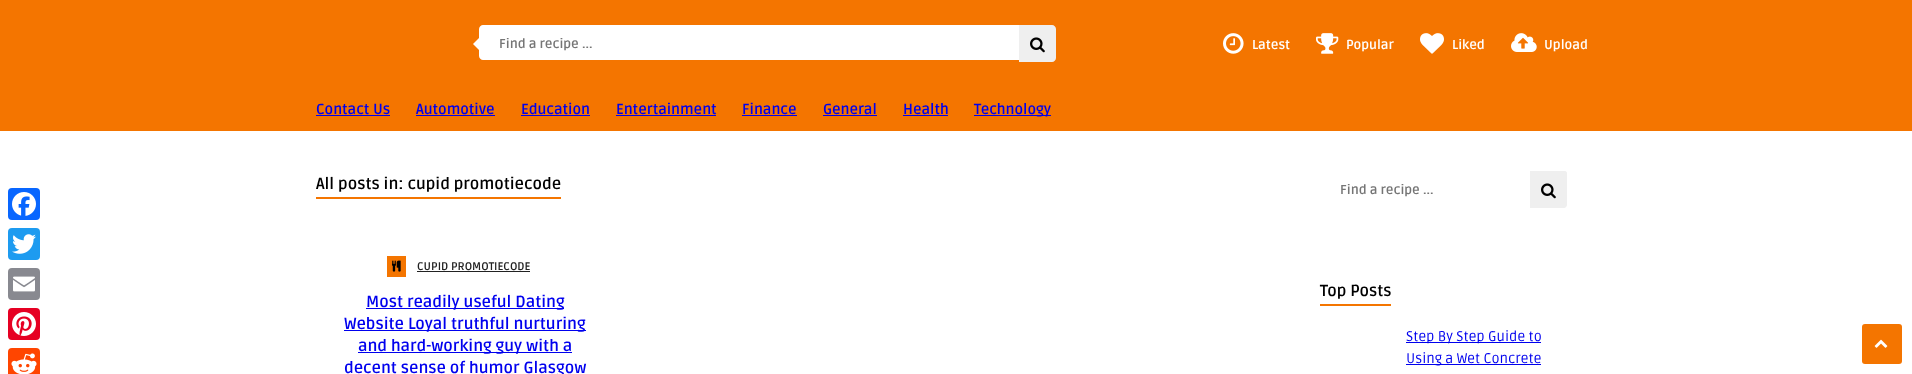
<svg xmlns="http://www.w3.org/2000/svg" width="1912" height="374">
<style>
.a{font:bold 13px Ruda;fill:#757575}
.b{font:bold 13px Ruda;fill:#fff}
.c{font:bold 14.5px Ruda;fill:#00e}
.d{font:bold 16px Ruda;fill:#000}
.e{font:bold 11px Ruda;fill:#222}
.f{font:bold 16px Ruda;fill:#00e}
.g{font:14px Ruda;fill:#00e}
</style>
<rect width="100%" height="100%" fill="#fff"/>
<path fill="#f47500" d="M0 0h1912v131H0z"/>
<path fill="#fff" d="M483 25h536v35h-536c-2 0-4-2-4-4v-27c0-2 2-4 4-4z"/>
<path fill="#fff" d="M483 34v20l-10-10z"/>
<path fill="#efefef" d="M1019 25h33c2 0 4 2 4 4v29c0 2-2 4-4 4h-33z"/>
<image href="1.png" x="1030" y="37" width="15" height="16"/>
<image href="2.png" x="1223" y="33" width="21" height="21"/>
<image href="3.png" x="1316" y="33" width="23" height="21"/>
<image href="4.png" x="1420" y="33" width="24" height="21"/>
<image href="5.png" x="1511" y="33" width="26" height="19"/>
<path fill="#00e" d="M316 115h74v1H316z"/>
<path fill="#00e" d="M416 115h79v1H416z"/>
<path fill="#00e" d="M521 115h69v1H521z"/>
<path fill="#00e" d="M616 115h100v1H616z"/>
<path fill="#00e" d="M742 115h55v1H742z"/>
<path fill="#00e" d="M823 115h54v1H823z"/>
<path fill="#00e" d="M903 115h45v1H903z"/>
<path fill="#00e" d="M974 115h77v1H974z"/>
<rect fill="#0866ff" x="8" y="188" width="32" height="32" rx="4"/>
<image href="6.png" x="12" y="192" width="24" height="24"/>
<rect fill="#1d9bf0" x="8" y="228" width="32" height="32" rx="4"/>
<image href="7.png" x="12" y="234" width="24" height="20"/>
<rect fill="#888990" x="8" y="268" width="32" height="32" rx="4"/>
<image href="8.png" x="13" y="276" width="22" height="16"/>
<rect fill="#e60023" x="8" y="308" width="32" height="32" rx="4"/>
<image href="9.png" x="12" y="312" width="24" height="24"/>
<rect fill="#ff4500" x="8" y="348" width="32" height="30" rx="4"/>
<image href="10.png" x="11" y="353" width="26" height="21"/>
<path fill="#f47500" d="M316 197h245v2H316z"/>
<path fill="#f47500" d="M387 256h19v21H387z"/>
<image href="11.png" x="392" y="260" width="9" height="12"/>
<path fill="#222" d="M417 271h113v1H417z"/>
<path fill="#00e" d="M366 308h198v1H366z"/>
<path fill="#00e" d="M344 330h242v1H344z"/>
<path fill="#00e" d="M358 352h214v1H358z"/>
<path fill="#efefef" d="M1530 171h35c1 0 2 1 2 2v32c0 1.5-1.5 3-3 3h-34z"/>
<image href="1.png" x="1541" y="183" width="15" height="16"/>
<path fill="#f47500" d="M1320 304h71v2H1320z"/>
<path fill="#00e" d="M1406 342h135v1H1406z"/>
<path fill="#00e" d="M1406 364h135v1H1406z"/>
<rect fill="#f47500" x="1862" y="324" width="40" height="40" rx="3"/>
<image href="12.png" x="1874" y="339" width="14" height="9"/>
<text class="a" x="499" y="48">Find a recipe ...</text>
<text class="b" x="1252" y="49">Latest</text>
<text class="b" x="1346" y="49">Popular</text>
<text class="b" x="1452" y="49">Liked</text>
<text class="b" x="1544" y="49">Upload</text>
<text class="c" x="316" y="114">Contact Us</text>
<text class="c" x="416" y="114">Automotive</text>
<text class="c" x="521" y="114">Education</text>
<text class="c" x="616" y="114">Entertainment</text>
<text class="c" x="742" y="114">Finance</text>
<text class="c" x="823" y="114">General</text>
<text class="c" x="903" y="114">Health</text>
<text class="c" x="974" y="114">Technology</text>
<text class="d" x="316" y="189">All posts in: cupid promotiecode</text>
<text class="e" x="417" y="270">CUPID PROMOTIECODE</text>
<text class="f" x="366" y="307">Most readily useful Dating</text>
<text class="f" x="344" y="329">Website Loyal truthful nurturing</text>
<text class="f" x="358" y="351">and hard-working guy with a</text>
<text class="f" x="344" y="373">decent sense of humor Glasgow</text>
<text class="a" x="1340" y="194">Find a recipe ...</text>
<text class="d" x="1320" y="296">Top Posts</text>
<text class="g" x="1406" y="341">Step By Step Guide to</text>
<text class="g" x="1406" y="363">Using a Wet Concrete</text>
</svg>
